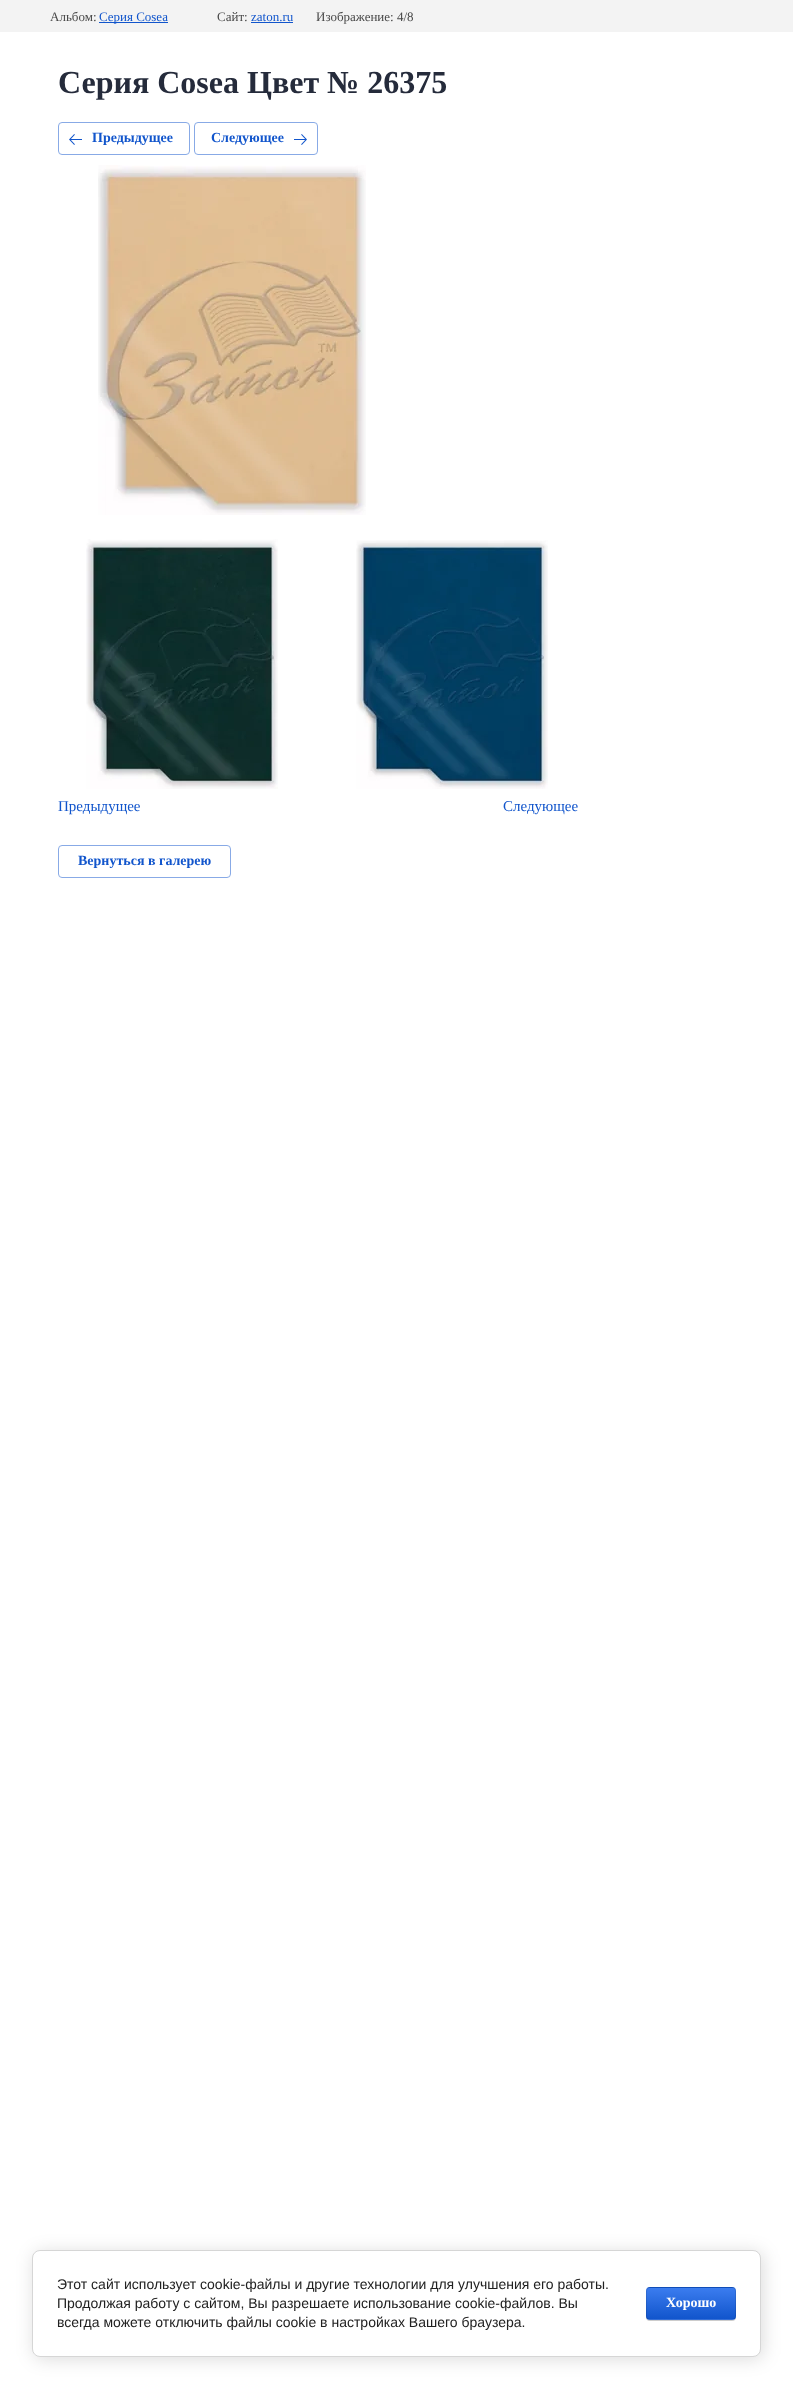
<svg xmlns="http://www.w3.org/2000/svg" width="793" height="2389">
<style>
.a{font:13px Liberation Serif;fill:#484848}
.b{font:13px Liberation Serif;fill:#15c}
.c{font:bold 32px Liberation Serif;fill:#252b3b}
.d{font:bold 14px Liberation Serif;fill:#15c}
.e{font:15px Liberation Serif;fill:#15c}
.f{font:14px Liberation Sans;fill:#212121}
.g{font:bold 14px Liberation Serif;fill:#fff}
</style>
<defs>
<clipPath id="clip1"><rect x="646" y="2287" width="90" height="33" rx="4"/></clipPath>
<linearGradient id="g1" gradientUnits="userSpaceOnUse" x1="691" y1="2257" x2="691" y2="2288"><stop offset="0" stop-color="#3b7cef"/><stop offset="1" stop-color="#15c"/></linearGradient>
<linearGradient id="g2" gradientUnits="userSpaceOnUse" x1="691" y1="2288" x2="691" y2="2319"><stop offset="0" stop-color="#3b7cef"/><stop offset="1" stop-color="#15c"/></linearGradient>
<linearGradient id="g3" gradientUnits="userSpaceOnUse" x1="691" y1="2319" x2="691" y2="2350"><stop offset="0" stop-color="#3b7cef"/><stop offset="1" stop-color="#15c"/></linearGradient>
</defs>
<rect width="100%" height="100%" fill="#fff"/>
<path fill="#f3f3f3" d="M0 0h793v32H0z"/>
<path fill="#15c" d="M99 22h69v1H99z"/>
<path fill="#15c" d="M251 22h42v1H251z"/>
<rect fill="none" stroke="#88aae6" x="58.5" y="122.5" width="131" height="32" rx="3.5"/>
<image href="1.png" x="69" y="134" width="13" height="11"/>
<rect fill="none" stroke="#88aae6" x="194.5" y="122.5" width="123" height="32" rx="3.5"/>
<image href="2.png" x="294" y="134" width="13" height="11"/>
<image href="3.png" x="98" y="165" width="268" height="350"/>
<image href="4.png" x="86" y="539" width="192" height="250"/>
<image href="5.png" x="356" y="540" width="192" height="249"/>
<rect fill="none" stroke="#88aae6" x="58.5" y="845.5" width="172" height="32" rx="3.5"/>
<rect fill="#00000024" filter="blur(9px)" x="34" y="2252" width="729" height="107" rx="8"/>
<rect fill="#fff" stroke="#d6d6d6" x="32.5" y="2250.5" width="728" height="106" rx="7.5"/>
<rect fill="#00000033" filter="blur(0.5px)" x="646" y="2288" width="90" height="33" rx="4"/>
<g clip-path="url(#clip1)">
<path fill="url(#g1)" d="M646 2287h90v1H646z"/>
<path fill="url(#g2)" d="M646 2288h90v31H646z"/>
<path fill="url(#g3)" d="M646 2319h90v1H646z"/>
</g>
<rect fill="none" stroke="#0000001a" x="646.5" y="2287.5" width="89" height="32" rx="3.5"/>
<text class="a" x="50" y="21">Альбом:</text>
<text class="b" x="99" y="21">Cерия Cosea</text>
<text class="a" x="217" y="21">Сайт:</text>
<text class="b" x="251" y="21">zaton.ru</text>
<text class="a" x="316" y="21">Изображение: 4/8</text>
<text class="c" x="58" y="93">Серия Cosea Цвет № 26375</text>
<text class="d" x="92" y="142">Предыдущее</text>
<text class="d" x="211" y="142">Следующее</text>
<text class="e" x="58" y="811">Предыдущее</text>
<text class="e" x="503" y="811">Следующее</text>
<text class="d" x="78" y="865">Вернуться в галерею</text>
<text class="f" x="57" y="2289">Этот сайт использует cookie-файлы и другие технологии для улучшения его работы.</text>
<text class="f" x="57" y="2308">Продолжая работу с сайтом, Вы разрешаете использование cookie-файлов. Вы</text>
<text class="f" x="57" y="2327">всегда можете отключить файлы cookie в настройках Вашего браузера.</text>
<text class="g" x="666" y="2307">Хорошо</text>
</svg>
